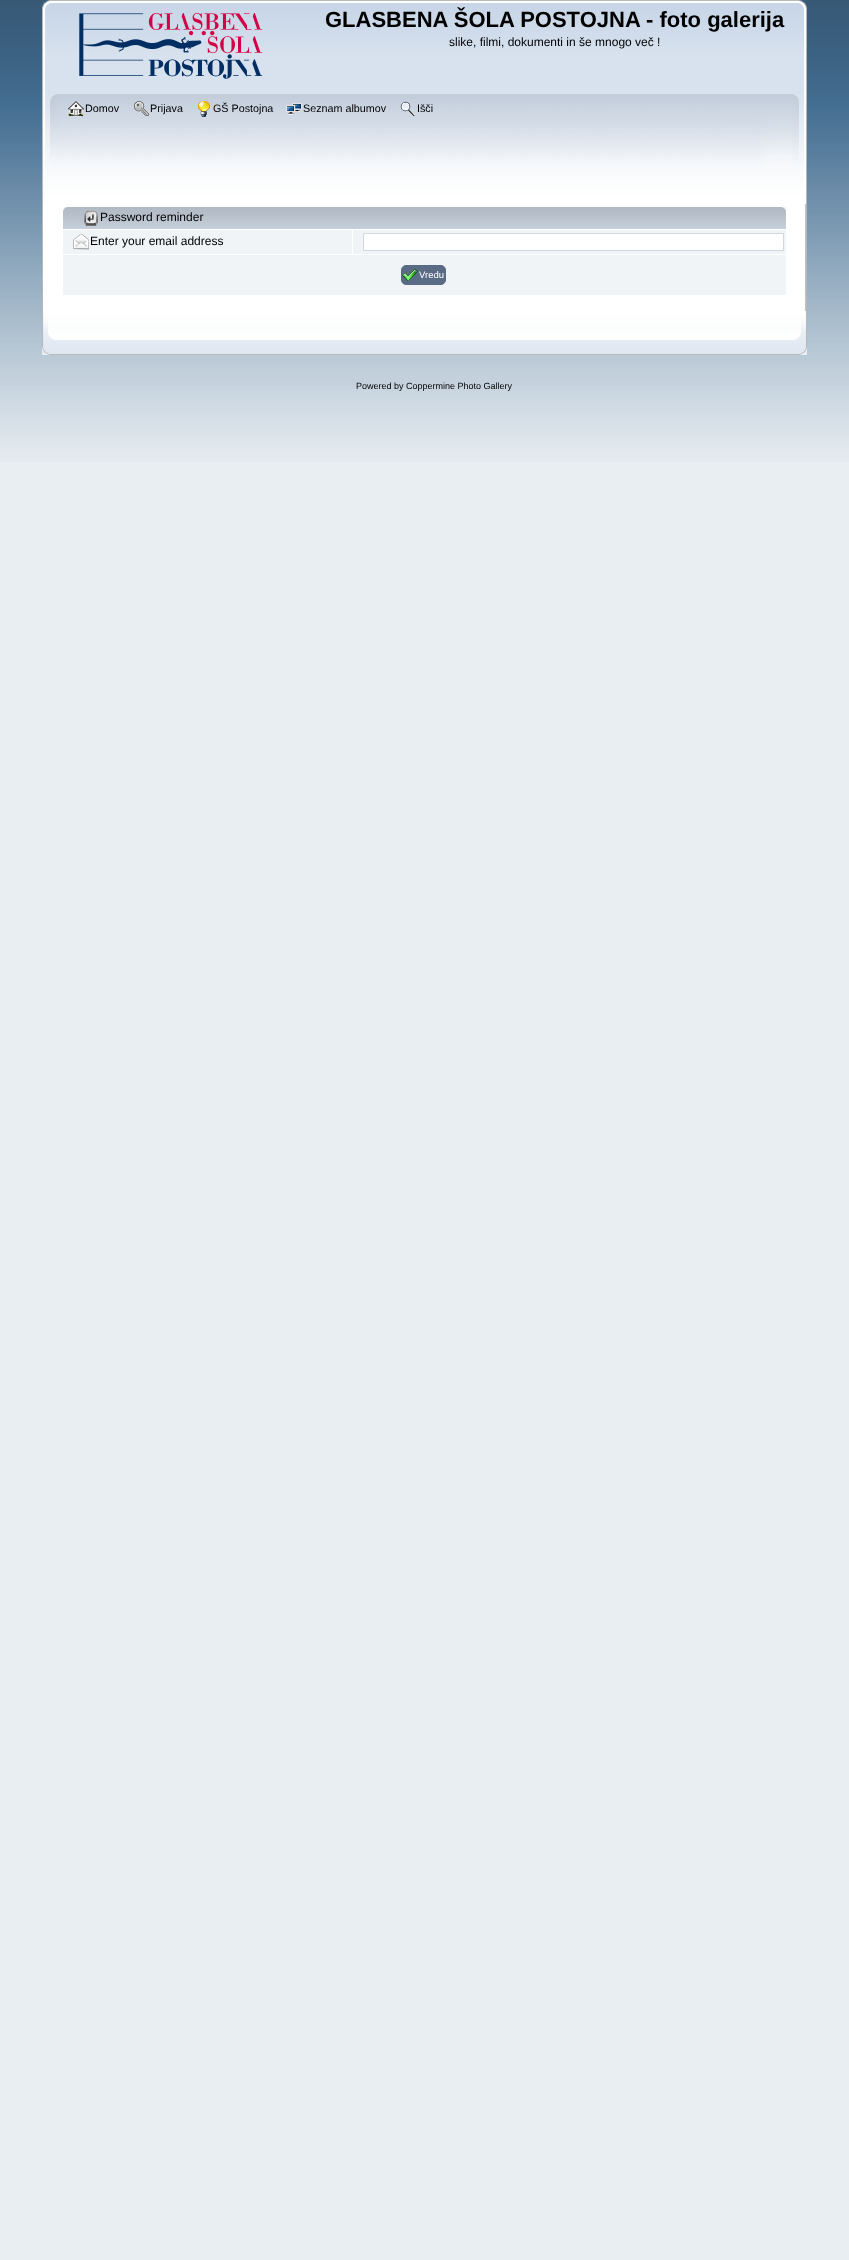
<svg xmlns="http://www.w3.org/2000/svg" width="849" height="2260">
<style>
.a{font:bold 22px Liberation Sans;fill:#000}
.b{font:12px Liberation Sans;fill:#000}
.c{font:10.75px Liberation Sans;fill:#000}
.d{font:9.5px Liberation Sans;fill:#fff}
.e{font:9px Liberation Sans;fill:#000}
</style>
<rect width="100%" height="100%" fill="#e9eef2"/>
<image href="1.png" x="0" y="0" width="849" height="462"/>
<image href="2.png" x="42" y="0" width="757" height="94"/>
<image href="3.png" x="799" y="0" width="8" height="94"/>
<image href="4.png" x="79" y="13" width="184" height="66"/>
<image href="5.png" x="42" y="94" width="750" height="110"/>
<image href="6.png" x="792" y="94" width="15" height="110"/>
<image href="7.png" x="68" y="101" width="16" height="16"/>
<image href="8.png" x="134" y="101" width="15" height="15"/>
<image href="9.png" x="198" y="101" width="12" height="16"/>
<image href="10.png" x="286" y="103" width="16" height="12"/>
<image href="11.png" x="400" y="101" width="16" height="15"/>
<path fill="#fff" d="M43 204h762v107H43z"/>
<path fill="#b7b7b7" d="M42 204h1v107H42z"/>
<image href="12.png" x="805" y="204" width="2" height="107"/>
<image href="13.png" x="63" y="207" width="723" height="22"/>
<image href="14.png" x="781" y="207" width="5" height="4"/>
<image href="15.png" x="84" y="210" width="14" height="16"/>
<path fill="#f0f4f7" d="M63 230h289v24H63z"/>
<image href="16.png" x="73" y="234" width="16" height="16"/>
<path fill="#f0f4f7" d="M353 230h433v24H353z"/>
<path fill="#fff" stroke="#d1d7dc" d="M363.5 233.5h420v17H363.5z"/>
<path fill="#f0f4f7" d="M63 255h723v40H63z"/>
<rect fill="#5a6c85" stroke="#5a6c85" x="401.5" y="265.5" width="44" height="19" rx="4.5"/>
<image href="17.png" x="402" y="269" width="16" height="12"/>
<image href="18.png" x="42" y="311" width="752" height="44"/>
<image href="19.png" x="794" y="311" width="13" height="44"/>
<text class="a" x="325" y="27">GLASBENA ŠOLA POSTOJNA - foto galerija</text>
<text class="b" x="449" y="46">slike, filmi, dokumenti in še mnogo več !</text>
<text class="c" x="85" y="112">Domov</text>
<text class="c" x="150" y="112">Prijava</text>
<text class="c" x="213" y="112">GŠ Postojna</text>
<text class="c" x="303" y="112">Seznam albumov</text>
<text class="c" x="417" y="112">Išči</text>
<text class="b" x="100" y="221">Password reminder</text>
<text class="b" x="90" y="245">Enter your email address</text>
<text class="d" x="419" y="278">Vredu</text>
<text class="e" x="356" y="389">Powered by Coppermine Photo Gallery</text>
</svg>
